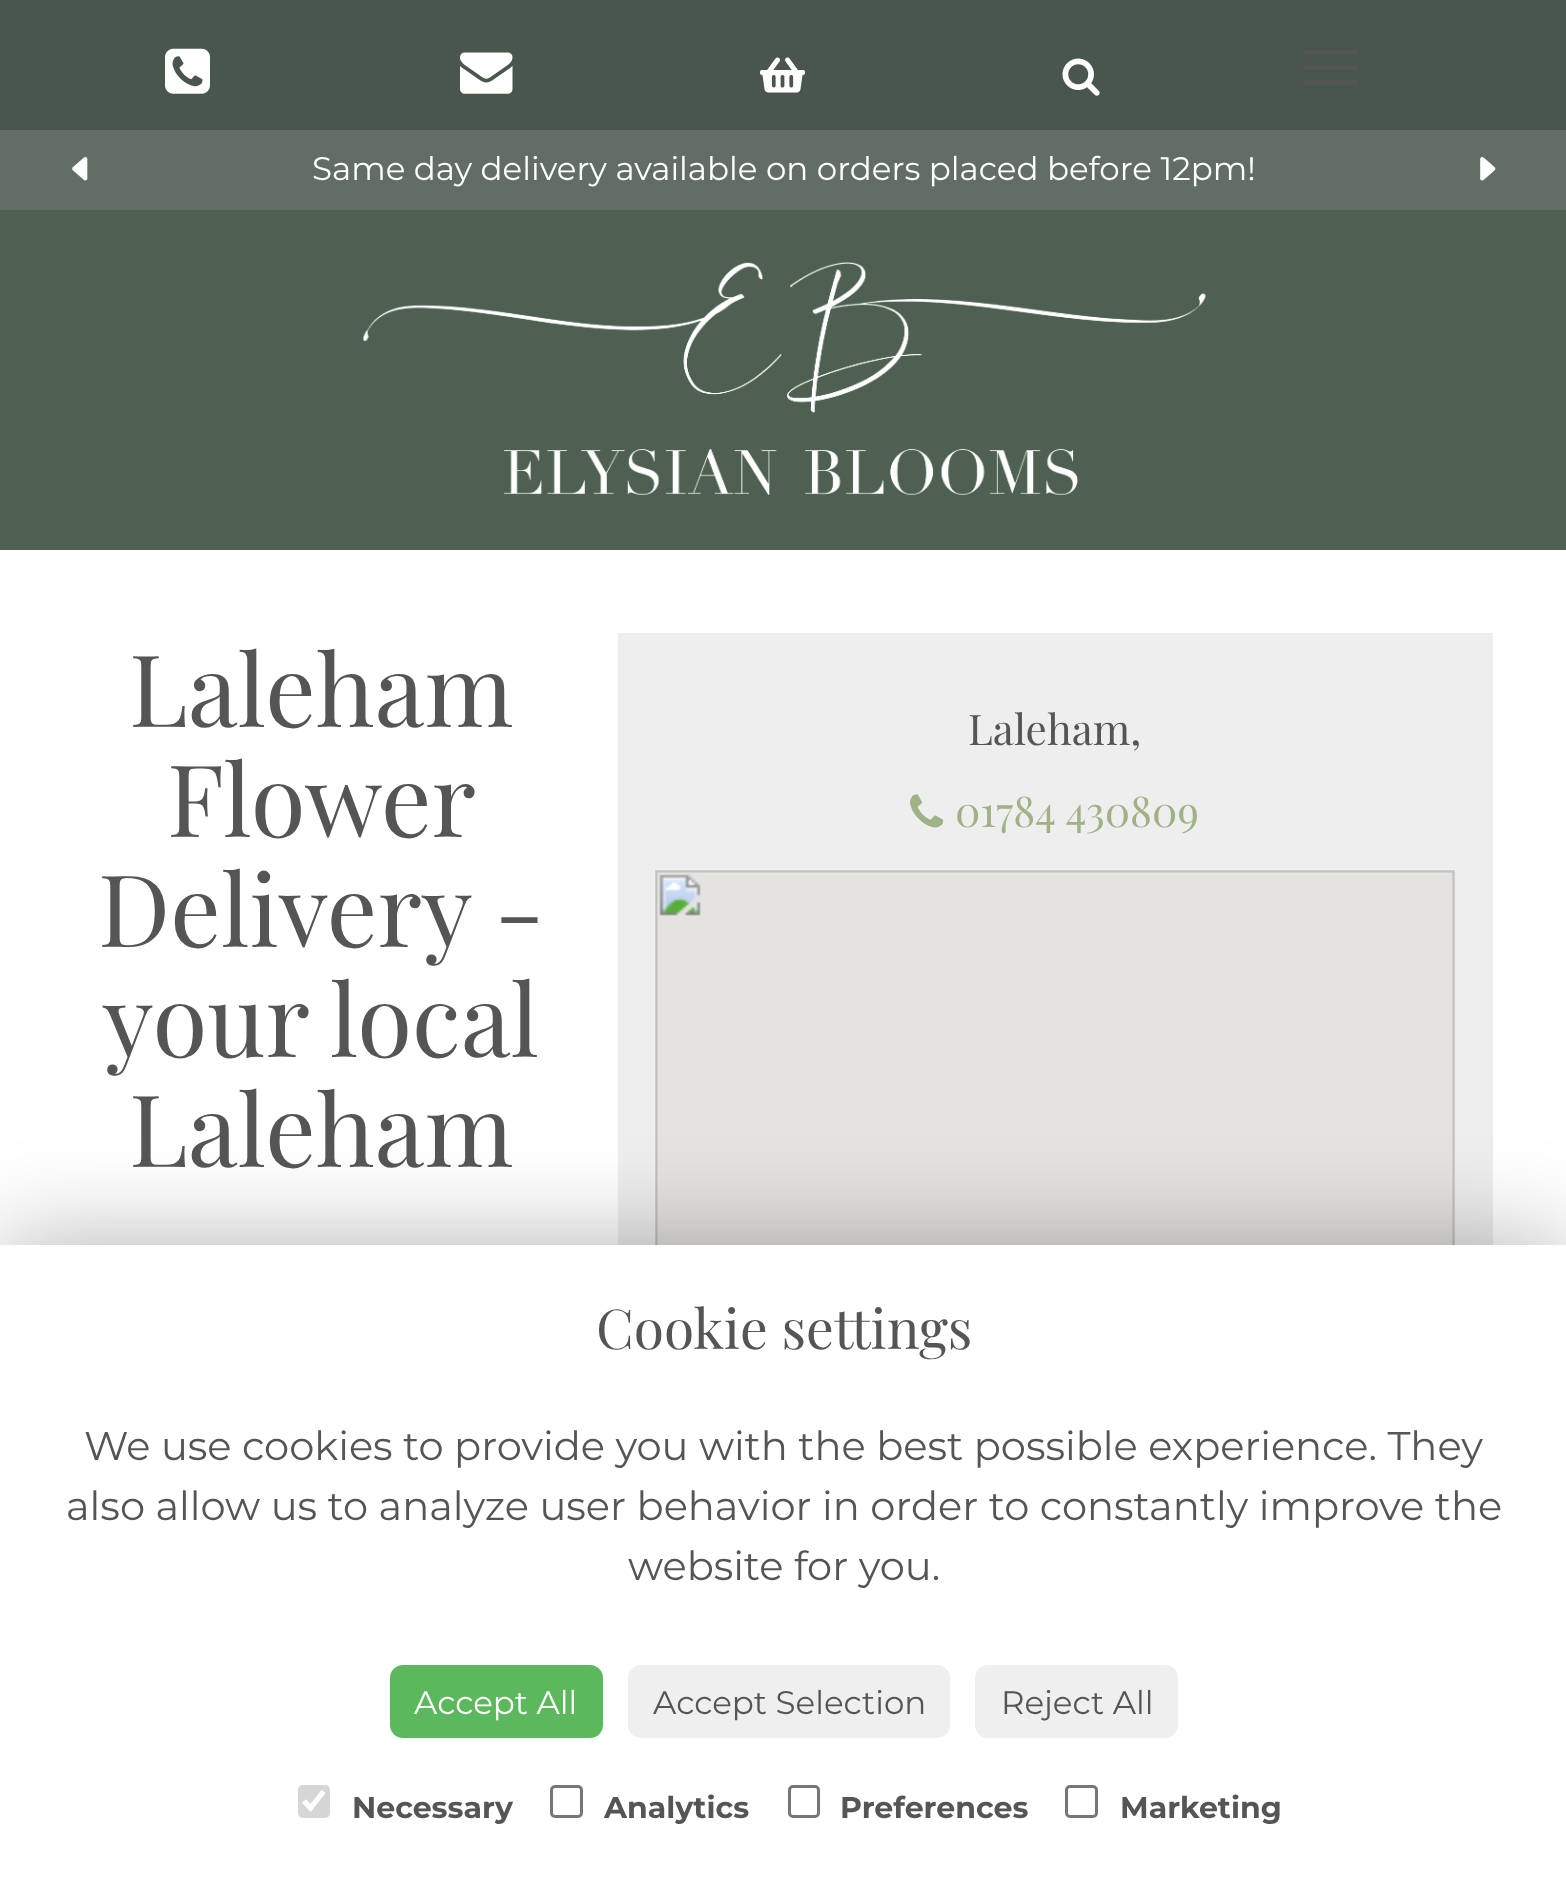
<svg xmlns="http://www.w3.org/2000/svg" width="1566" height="1892">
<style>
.a{font:32.5px Montserrat;fill:#fff}
.b{font:100px Playfair Display;fill:#555}
.c{font:42.25px Playfair Display;fill:#555}
.d{font:42.25px Playfair Display;fill:#9eb286}
.e{font:55px Playfair Display;fill:#555}
.f{font:40px Montserrat;fill:#555}
.g{font:32.5px Montserrat;fill:#555}
.h{font:bold 30px Montserrat;fill:#555}
</style>
<rect width="100%" height="100%" fill="#fff"/>
<path fill="#49564c" d="M0 0h1566v130H0z"/>
<image href="1.png" x="165" y="48" width="45" height="46"/>
<image href="2.png" x="460" y="52" width="53" height="42"/>
<image href="3.png" x="760" y="57" width="45" height="36"/>
<image href="4.png" x="1062" y="58" width="38" height="38"/>
<rect fill="#555" x="1303" y="50" width="55" height="5" rx="2.5"/>
<rect fill="#555" x="1303" y="65" width="55" height="5" rx="2.5"/>
<rect fill="#555" x="1303" y="80" width="55" height="5" rx="2.5"/>
<path fill="#4d6051" d="M0 210h1566v340H0z"/>
<path fill="#626e65" d="M0 130h1566v80H0z"/>
<image href="5.png" x="72" y="157" width="16" height="24"/>
<image href="6.png" x="1480" y="157" width="16" height="24"/>
<image href="7.png" x="362" y="261" width="844" height="234"/>
<path fill="#eee" d="M618 633h875v612H618z"/>
<image href="8.png" x="910" y="794" width="34" height="34"/>
<image href="9.png" x="655" y="870" width="800" height="375"/>
<path fill="#0000004f" filter="blur(50px)" d="M0 1245h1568v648H0z"/>
<path fill="#fff" d="M0 1245h1566v647H0z"/>
<rect fill="#5cb85c" x="390" y="1665" width="213" height="73" rx="13"/>
<rect fill="#efefef" x="628" y="1665" width="322" height="73" rx="13"/>
<rect fill="#efefef" x="975" y="1665" width="203" height="73" rx="13"/>
<rect fill="#d6d6d6" x="298" y="1785" width="32" height="33" rx="5"/>
<path fill="none" stroke="#fff" stroke-width="5.2" d="M304 1801l6.5 7l13-16.5"/>
<rect fill="none" stroke="#767676" stroke-width="3" x="551.5" y="1786.5" width="30" height="30" rx="3.5"/>
<rect fill="none" stroke="#767676" stroke-width="3" x="789.5" y="1786.5" width="29" height="30" rx="3.5"/>
<rect fill="none" stroke="#767676" stroke-width="3" x="1066.5" y="1786.5" width="30" height="30" rx="3.5"/>
<text class="a" x="312" y="180">Same day delivery available on orders placed before 12pm!</text>
<text class="b" x="129" y="727">Laleham</text>
<text class="b" x="167" y="837">Flower</text>
<text class="b" x="98" y="947">Delivery -</text>
<text class="b" x="103" y="1057">your local</text>
<text class="b" x="129" y="1167">Laleham</text>
<text class="c" x="968" y="745">Laleham,</text>
<text class="d" x="955" y="827">01784 430809</text>
<text class="e" x="596" y="1349">Cookie settings</text>
<text class="f" x="84" y="1460">We use cookies to provide you with the best possible experience. They</text>
<text class="f" x="66" y="1520">also allow us to analyze user behavior in order to constantly improve the</text>
<text class="f" x="628" y="1580">website for you.</text>
<text class="a" x="414" y="1714">Accept All</text>
<text class="g" x="653" y="1714">Accept Selection</text>
<text class="g" x="1001" y="1714">Reject All</text>
<text class="h" x="352" y="1818">Necessary</text>
<text class="h" x="604" y="1818">Analytics</text>
<text class="h" x="840" y="1818">Preferences</text>
<text class="h" x="1120" y="1818">Marketing</text>
</svg>
